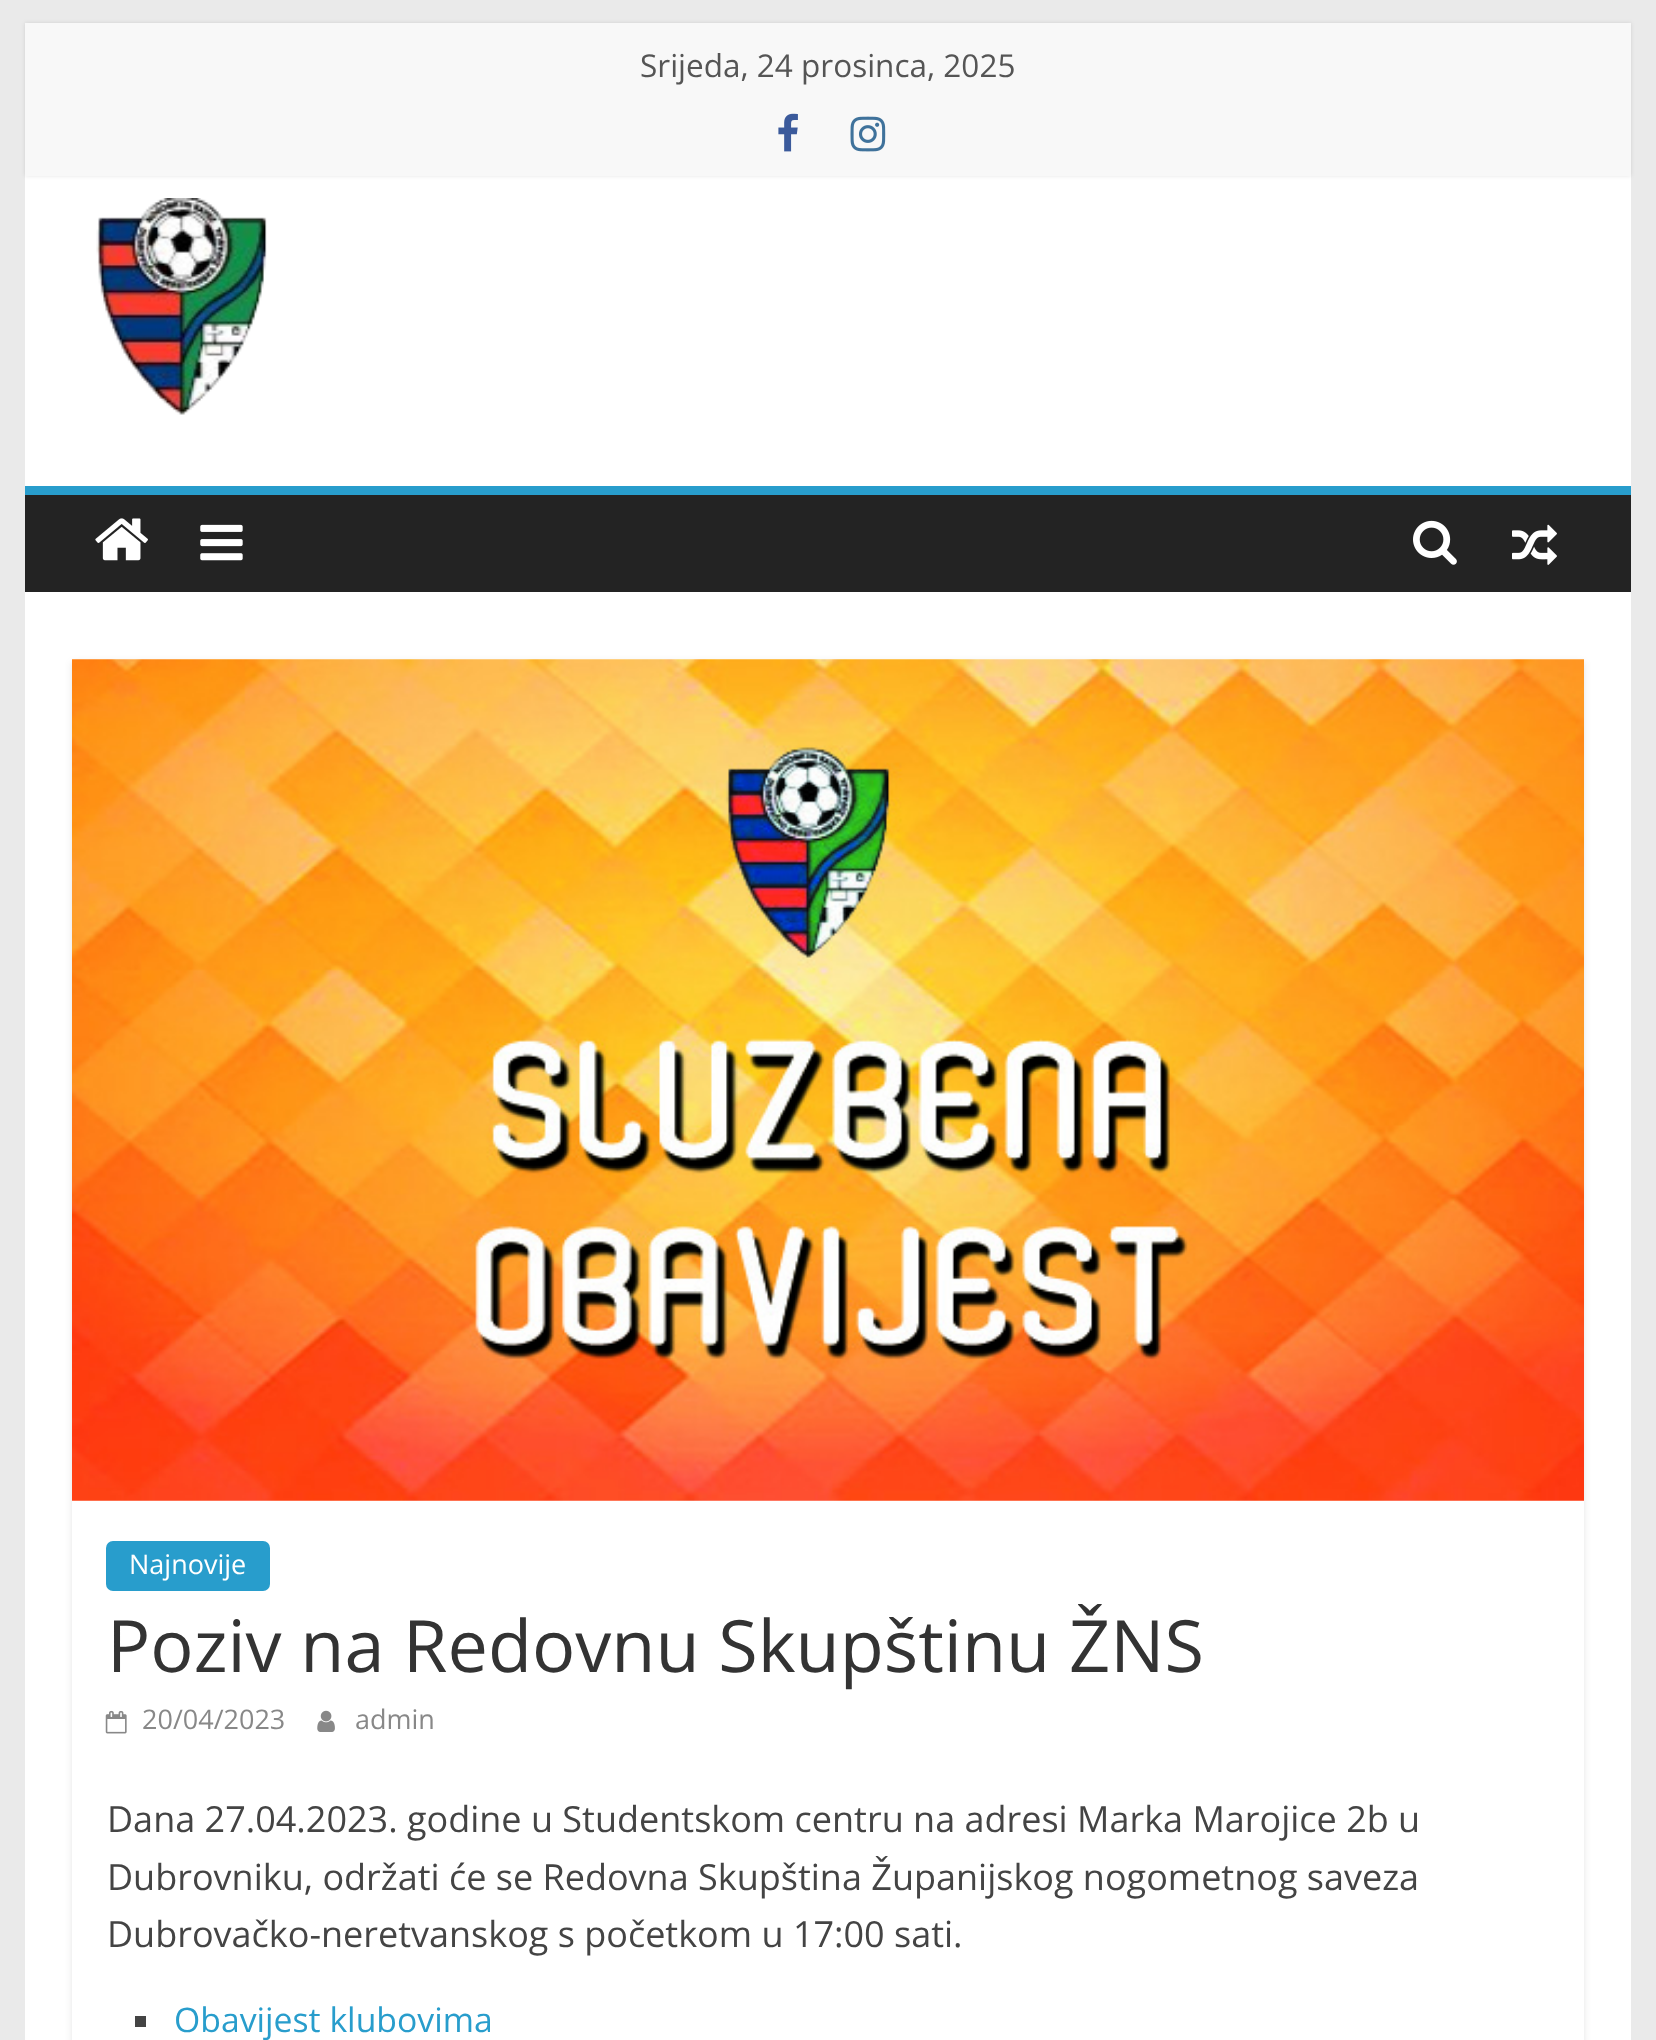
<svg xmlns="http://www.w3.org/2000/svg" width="1656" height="2040">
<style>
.a{font:31.5px Open Sans;fill:#555}
.b{font:27px Open Sans;fill:#fff}
.c{font:72px Open Sans;fill:#333}
.d{font:27px Open Sans;fill:#888}
.e{font:36px Open Sans;fill:#444}
.f{font:33.75px Open Sans;fill:#289dcc}
</style>
<defs>
<clipPath id="clip1"><path d="M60 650h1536v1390h-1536zm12 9h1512v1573h-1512z" clip-rule="evenodd"/></clipPath>
</defs>
<rect width="100%" height="100%" fill="#eaeaea"/>
<path fill="#fff" d="M25 176h1606v310H25z"/>
<path fill="#0000001a" filter="blur(2px)" d="M25 23h1606v153H25z"/>
<path fill="#f8f8f8" d="M25 23h1606v153H25z"/>
<image href="1.png" x="778" y="113" width="20" height="39"/>
<image href="2.png" x="850" y="116" width="36" height="36"/>
<image href="3.png" x="96" y="198" width="171" height="217"/>
<path fill="#232323" d="M25 495h1606v97H25z"/>
<path fill="#289dcc" d="M25 486h1606v9H25z"/>
<image href="4.png" x="95" y="518" width="53" height="43"/>
<image href="5.png" x="200" y="524" width="43" height="37"/>
<image href="6.png" x="1413" y="520" width="44" height="45"/>
<image href="7.png" x="1512" y="524" width="45" height="41"/>
<path fill="#fff" d="M25 592h1606v1448H25z"/>
<g clip-path="url(#clip1)">
<path fill="#0000001a" filter="blur(3.5px)" d="M72 662h1512v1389H72z"/>
</g>
<image href="8.png" x="72" y="659" width="1512" height="842"/>
<rect fill="#289dcc" x="106" y="1541" width="164" height="50" rx="7"/>
<image href="9.png" x="105" y="1710" width="22" height="24"/>
<image href="10.png" x="317" y="1710" width="18" height="22"/>
<path fill="#444" d="M135 2016h11v11H135z"/>
<text class="a" x="640" y="77">Srijeda, 24 prosinca, 2025</text>
<text class="b" x="129" y="1574">Najnovije</text>
<text class="c" x="107" y="1672">Poziv na Redovnu Skupštinu ŽNS</text>
<text class="d" x="142" y="1729">20/04/2023</text>
<text class="d" x="355" y="1729">admin</text>
<text class="e" x="107" y="1832">Dana 27.04.2023. godine u Studentskom centru na adresi Marka Marojice 2b u</text>
<text class="e" x="107" y="1890">Dubrovniku, održati će se Redovna Skupština Županijskog nogometnog saveza</text>
<text class="e" x="107" y="1947">Dubrovačko-neretvanskog s početkom u 17:00 sati.</text>
<text class="f" x="174" y="2032">Obavijest klubovima</text>
</svg>
